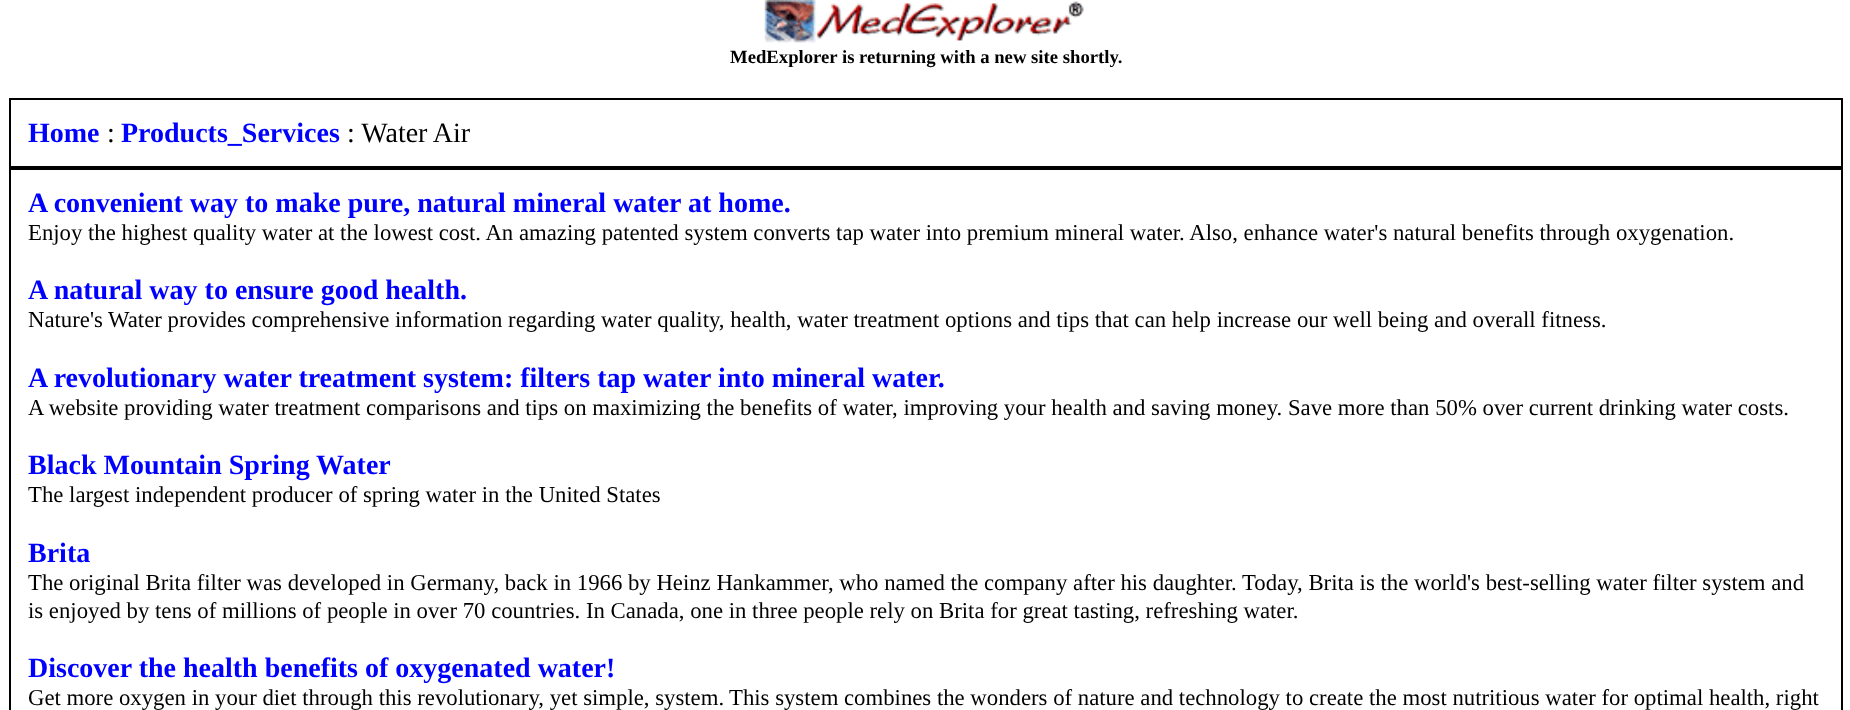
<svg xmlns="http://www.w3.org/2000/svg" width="1850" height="710">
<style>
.a{font:bold 18.7px Liberation Serif;fill:#000}
.b{font:bold 28px Liberation Serif;fill:#00f}
.c{font:28px Liberation Serif;fill:#000}
.d{font:22.75px Liberation Serif;fill:#000}
</style>
<rect width="100%" height="100%" fill="#fff"/>
<image href="1.png" x="764" y="0" width="321" height="44"/>
<path fill="none" stroke="#000" stroke-width="2" d="M10 99h1832v68H10z"/>
<path fill="none" stroke="#000" stroke-width="2" d="M10 169h1832v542H10z"/>
<text class="a" x="730" y="63">MedExplorer is returning with a new site shortly.</text>
<text class="b" x="28" y="142">Home</text>
<text class="c" x="107" y="142">:</text>
<text class="b" x="121" y="142">Products_Services</text>
<text class="c" x="347" y="142">: Water Air</text>
<text class="b" x="28" y="212">A convenient way to make pure, natural mineral water at home.</text>
<text class="d" x="28" y="240">Enjoy the highest quality water at the lowest cost. An amazing patented system converts tap water into premium mineral water. Also, enhance water's natural benefits through oxygenation.</text>
<text class="b" x="28" y="299">A natural way to ensure good health.</text>
<text class="d" x="28" y="327">Nature's Water provides comprehensive information regarding water quality, health, water treatment options and tips that can help increase our well being and overall fitness.</text>
<text class="b" x="28" y="387">A revolutionary water treatment system: filters tap water into mineral water.</text>
<text class="d" x="28" y="415">A website providing water treatment comparisons and tips on maximizing the benefits of water, improving your health and saving money. Save more than 50% over current drinking water costs.</text>
<text class="b" x="28" y="474">Black Mountain Spring Water</text>
<text class="d" x="28" y="502">The largest independent producer of spring water in the United States</text>
<text class="b" x="28" y="562">Brita</text>
<text class="d" x="28" y="590">The original Brita filter was developed in Germany, back in 1966 by Heinz Hankammer, who named the company after his daughter.</text>
<text class="d" x="1242" y="590">Today, Brita is the world's best-selling water filter system and</text>
<text class="d" x="28" y="618">is enjoyed by tens of millions of people in over 70 countries. In Canada, one in three people rely on Brita for great tasting, refreshing water.</text>
<text class="b" x="28" y="677">Discover the health benefits of oxygenated water!</text>
<text class="d" x="28" y="705">Get more oxygen in your diet through this revolutionary, yet simple, system.</text>
<text class="d" x="729" y="705">This system combines the wonders of nature and technology to create the most nutritious water for optimal health, right</text>
</svg>
